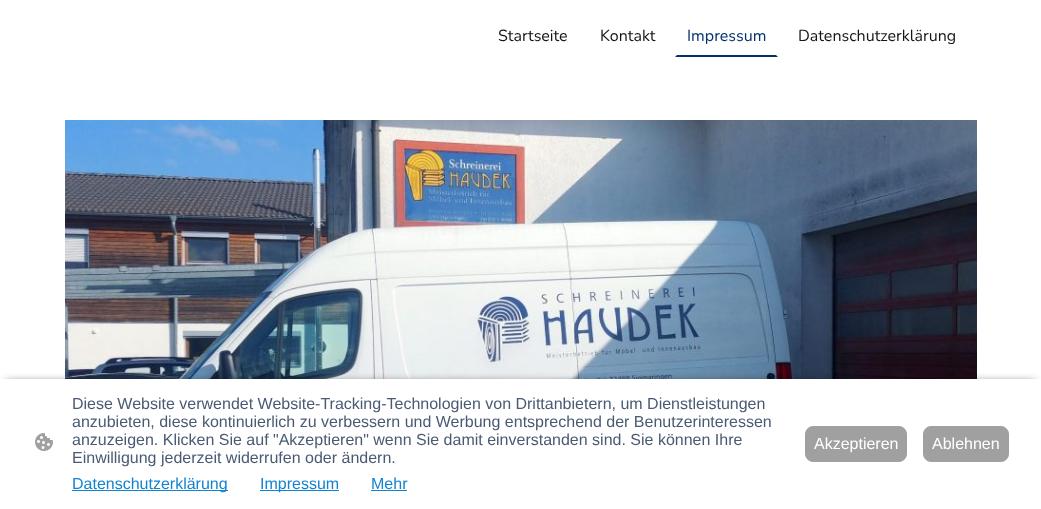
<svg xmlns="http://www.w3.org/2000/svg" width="1041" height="509">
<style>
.a{font:16px Nunito;fill:#151515}
.b{font:16px Nunito;fill:#03326d}
.c{font:16px Liberation Sans;fill:#4a5a73}
.d{font:16px Liberation Sans;fill:#1183d1}
.e{font:16px Liberation Sans;fill:#fff}
</style>
<rect width="100%" height="100%" fill="#fff"/>
<path fill="#03326d" d="M778 57h-103l2-2h99z"/>
<image href="1.png" x="65" y="120" width="912" height="259"/>
<path fill="#000000a1" filter="blur(4px)" d="M6 382h1029v118H6z"/>
<path fill="#fff" d="M0 379h1041v130H0z"/>
<image href="2.png" x="35" y="433" width="18" height="18"/>
<path fill="#1183d1" d="M72 490h156v1H72z"/>
<path fill="#1183d1" d="M260 490h79v1H260z"/>
<path fill="#1183d1" d="M371 490h36v1H371z"/>
<rect fill="#a0a0a0" stroke="#a0a0a0" x="805.5" y="426.5" width="101" height="35" rx="7.5"/>
<rect fill="#a0a0a0" stroke="#a0a0a0" x="923.5" y="426.5" width="85" height="35" rx="7.5"/>
<text class="a" x="498" y="41">Startseite</text>
<text class="a" x="600" y="41">Kontakt</text>
<text class="b" x="687" y="41">Impressum</text>
<text class="a" x="798" y="41">Datenschutzerklärung</text>
<text class="c" x="72" y="409">Diese Website verwendet Website-Tracking-Technologien von Drittanbietern, um Dienstleistungen</text>
<text class="c" x="72" y="427">anzubieten, diese kontinuierlich zu verbessern und Werbung entsprechend der Benutzerinteressen</text>
<text class="c" x="72" y="445">anzuzeigen. Klicken Sie auf "Akzeptieren" wenn Sie damit einverstanden sind. Sie können Ihre</text>
<text class="c" x="72" y="463">Einwilligung jederzeit widerrufen oder ändern.</text>
<text class="d" x="72" y="489">Datenschutzerklärung</text>
<text class="d" x="260" y="489">Impressum</text>
<text class="d" x="371" y="489">Mehr</text>
<text class="e" x="814" y="449">Akzeptieren</text>
<text class="e" x="932" y="449">Ablehnen</text>
</svg>
